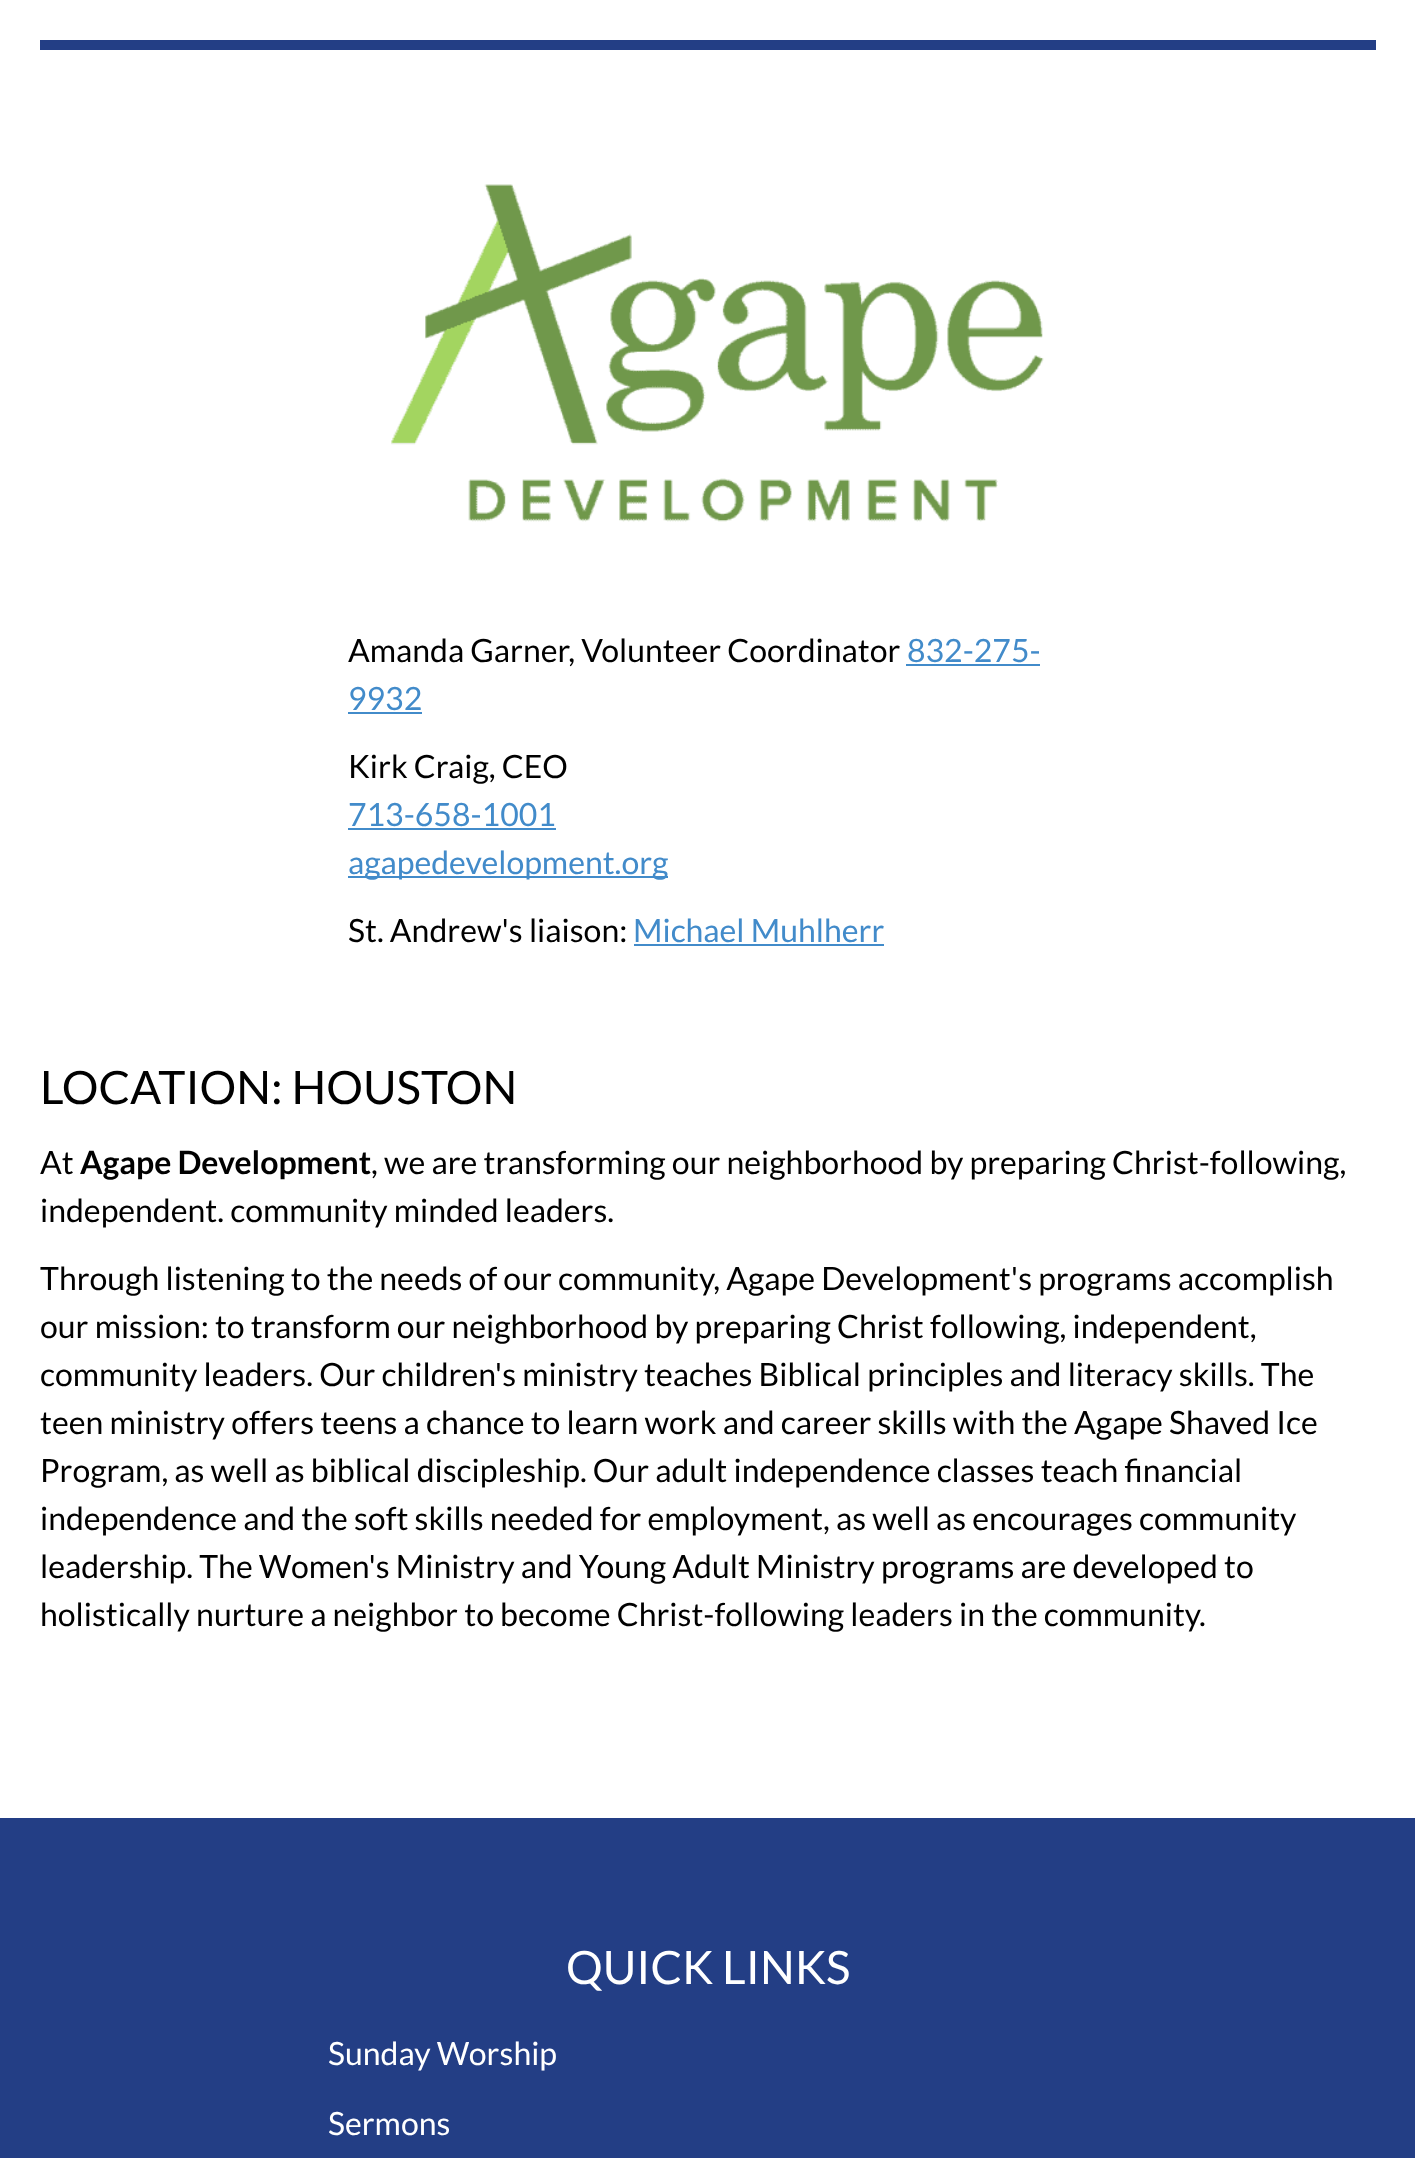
<svg xmlns="http://www.w3.org/2000/svg" width="1415" height="2158">
<style>
.a{font:32px Lato;fill:#000}
.b{font:32px Lato;fill:#428bca}
.c{font:46px Lato;fill:#000}
.d{font:bold 32px Lato;fill:#000}
.e{font:46px Lato;fill:#fff}
.f{font:32px Lato;fill:#fff}
</style>
<rect width="100%" height="100%" fill="#fff"/>
<path fill="#233e85" d="M40 40h1336v10H40z"/>
<image href="1.png" x="391" y="184" width="653" height="338"/>
<path fill="#428bca" d="M906 664h134v2H906z"/>
<path fill="#428bca" d="M348 712h74v2H348z"/>
<path fill="#428bca" d="M348 828h208v2H348z"/>
<path fill="#428bca" d="M348 876h320v2H348z"/>
<path fill="#428bca" d="M634 944h250v2H634z"/>
<path fill="#233e85" d="M0 1818h1415v340H0z"/>
<text class="a" x="348" y="662">Amanda Garner, Volunteer Coordinator</text>
<text class="b" x="907" y="662">832-275-</text>
<text class="b" x="348" y="710">9932</text>
<text class="a" x="348" y="778">Kirk Craig, CEO</text>
<text class="b" x="348" y="826">713-658-1001</text>
<text class="b" x="348" y="874">agapedevelopment.org</text>
<text class="a" x="348" y="942">St. Andrew's liaison:</text>
<text class="b" x="633" y="942">Michael Muhlherr</text>
<text class="c" x="40" y="1104">LOCATION: HOUSTON</text>
<text class="a" x="40" y="1174">At</text>
<text class="d" x="80" y="1174">Agape Development</text>
<text class="a" x="371" y="1174">, we are transforming our neighborhood by preparing Christ-following,</text>
<text class="a" x="40" y="1222">independent. community minded leaders.</text>
<text class="a" x="40" y="1290">Through listening to the needs of our community, Agape Development's programs accomplish</text>
<text class="a" x="40" y="1338">our mission: to transform our neighborhood by preparing Christ following, independent,</text>
<text class="a" x="40" y="1386">community leaders. Our children's ministry teaches Biblical principles and literacy skills. The</text>
<text class="a" x="40" y="1434">teen ministry offers teens a chance to learn work and career skills with the Agape Shaved Ice</text>
<text class="a" x="40" y="1482">Program, as well as biblical discipleship. Our adult independence classes teach financial</text>
<text class="a" x="40" y="1530">independence and the soft skills needed for employment, as well as encourages community</text>
<text class="a" x="40" y="1578">leadership. The Women's Ministry and Young Adult Ministry programs are developed to</text>
<text class="a" x="40" y="1626">holistically nurture a neighbor to become Christ-following leaders in the community.</text>
<text class="e" x="566" y="1984">QUICK LINKS</text>
<text class="f" x="328" y="2065">Sunday Worship</text>
<text class="f" x="328" y="2135">Sermons</text>
</svg>
